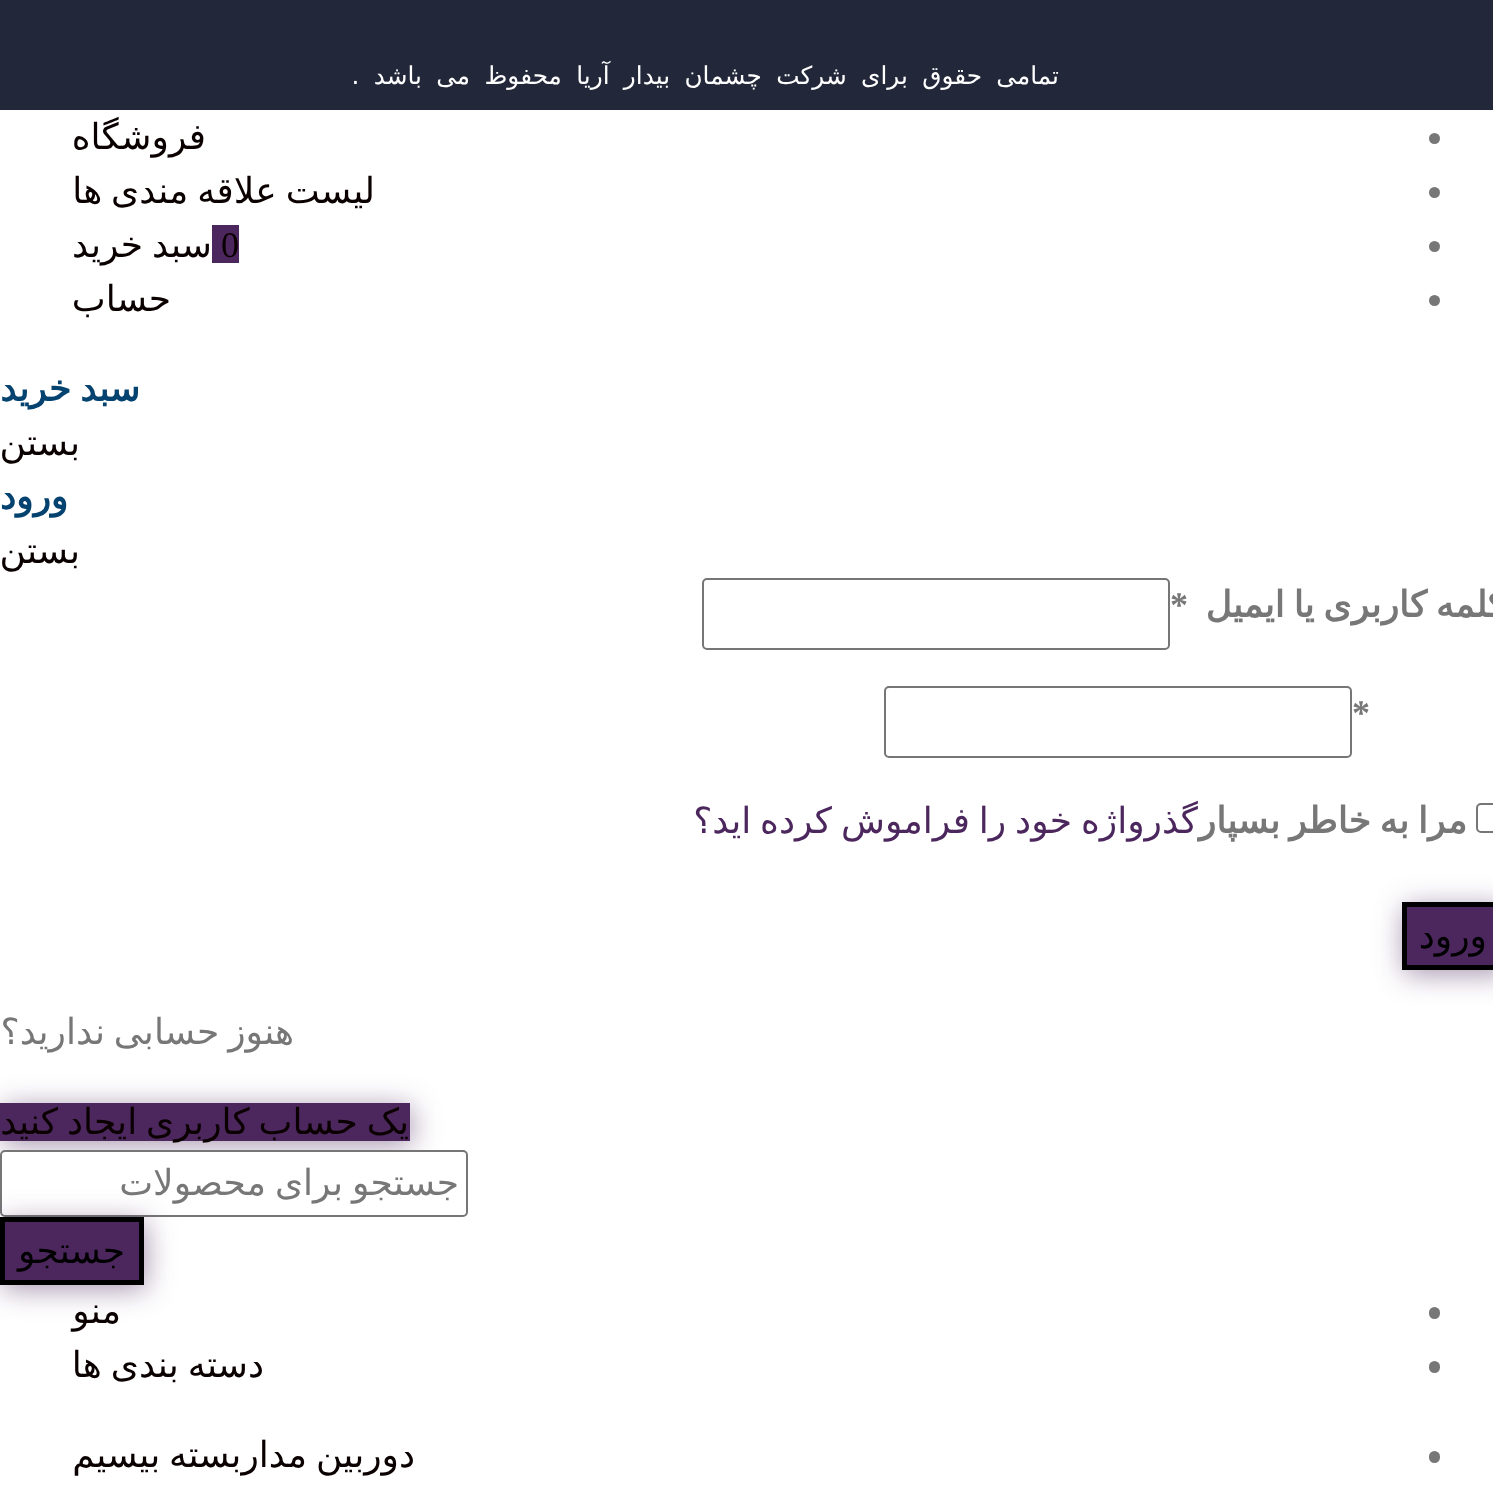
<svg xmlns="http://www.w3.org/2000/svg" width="1493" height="1487">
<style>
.a{font:24.75px DejaVu Sans;letter-spacing:-1.57px;direction:rtl;fill:#fff}
.b{font:36px DejaVu Sans;direction:rtl;fill:#0a0000}
.c{font:36px Liberation Serif;fill:#0a0000}
.d{font:bold 36px DejaVu Sans;direction:rtl;fill:#04426f}
.e{font:bold 36px DejaVu Sans;direction:rtl;fill:#777}
.f{font:bold 36px Liberation Serif;fill:#777}
.g{font:36px DejaVu Sans;direction:rtl;fill:#4c275e}
.h{font:36px DejaVu Sans;direction:rtl;fill:#000}
.i{font:36px DejaVu Sans;direction:rtl;fill:#777}
</style>
<defs>
<clipPath id="clip1"><path d="M9 1161h450v43H9z"/></clipPath>
</defs>
<rect width="100%" height="100%" fill="#fff"/>
<path fill="#22273a" d="M0 0h1493v110H0z"/>
<circle fill="#777" cx="1434.5" cy="138.5" r="5.5"/>
<circle fill="#777" cx="1434.5" cy="192.5" r="5.5"/>
<circle fill="#777" cx="1434.5" cy="246.5" r="5.5"/>
<path fill="#4c275e" d="M212 225h27v38H212z"/>
<circle fill="#777" cx="1434.5" cy="300.5" r="5.5"/>
<rect fill="none" stroke="#767676" stroke-width="2" x="703" y="579" width="466" height="70" rx="4"/>
<rect fill="none" stroke="#767676" stroke-width="2" x="885" y="687" width="466" height="70" rx="4"/>
<rect fill="none" stroke="#767676" stroke-width="2" x="1477" y="804" width="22" height="28" rx="4"/>
<path fill="#4c275e80" filter="blur(14.5px)" d="M1404 907h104v67H1404z"/>
<path fill="#4c275e" stroke="#000" stroke-width="5" d="M1404.5 904.5h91v63H1404.5z"/>
<path fill="#4c275e80" filter="blur(14.5px)" d="M2 1107h410v38H2z"/>
<path fill="#4c275e" d="M0 1103h410v38H0z"/>
<rect fill="#fff" stroke="#767676" stroke-width="2" x="1" y="1151" width="466" height="65" rx="4"/>
<path fill="#4c275e80" filter="blur(14.5px)" d="M2 1222h144v67H2z"/>
<path fill="#4c275e" stroke="#000" stroke-width="5" d="M2.5 1219.5h139v63H2.5z"/>
<rect fill="#777" x="1429" y="1307" width="11" height="12" rx="5.5"/>
<rect fill="#777" x="1429" y="1361" width="11" height="12" rx="5.5"/>
<rect fill="#777" x="1429" y="1451" width="11" height="12" rx="5.5"/>
<text class="a" x="1059" y="84" word-spacing="6.5">تمامی حقوق برای شرکت چشمان بیدار آریا محفوظ می باشد .</text>
<text class="b" x="206" y="149">فروشگاه</text>
<text class="b" x="375" y="203" word-spacing="-2.5">لیست علاقه مندی ها</text>
<text class="c" x="221" y="257">0</text>
<text class="b" x="212" y="257" word-spacing="-2.5">سبد خرید</text>
<text class="b" x="171" y="311">حساب</text>
<text class="d" x="140" y="401" word-spacing="-2.5">سبد خرید</text>
<text class="b" x="80" y="455">بستن</text>
<text class="d" x="68" y="509">ورود</text>
<text class="b" x="80" y="563">بستن</text>
<text class="e" x="1505" y="617" word-spacing="-2.5">کلمه کاربری یا ایمیل</text>
<text class="f" x="1170" y="617">*</text>
<text class="f" x="1352" y="725">*</text>
<text class="e" x="1467" y="833" word-spacing="-2.5">مرا به خاطر بسپار</text>
<text class="g" x="1198" y="833" word-spacing="-2.5">گذرواژه خود را فراموش کرده اید؟</text>
<text class="h" x="1487" y="948">ورود</text>
<text class="i" x="294" y="1044" word-spacing="-2.5">هنوز حسابی ندارید؟</text>
<text class="b" x="409" y="1134" word-spacing="-2.5">یک حساب کاربری ایجاد کنید</text>
<g clip-path="url(#clip1)">
<text class="i" x="459" y="1195" word-spacing="-2.5">جستجو برای محصولات</text>
</g>
<text class="h" x="125" y="1263">جستجو</text>
<text class="b" x="121" y="1323">منو</text>
<text class="b" x="264" y="1377" word-spacing="-2.5">دسته بندی ها</text>
<text class="b" x="415" y="1467" word-spacing="-2.5">دوربین مداربسته بیسیم</text>
</svg>
